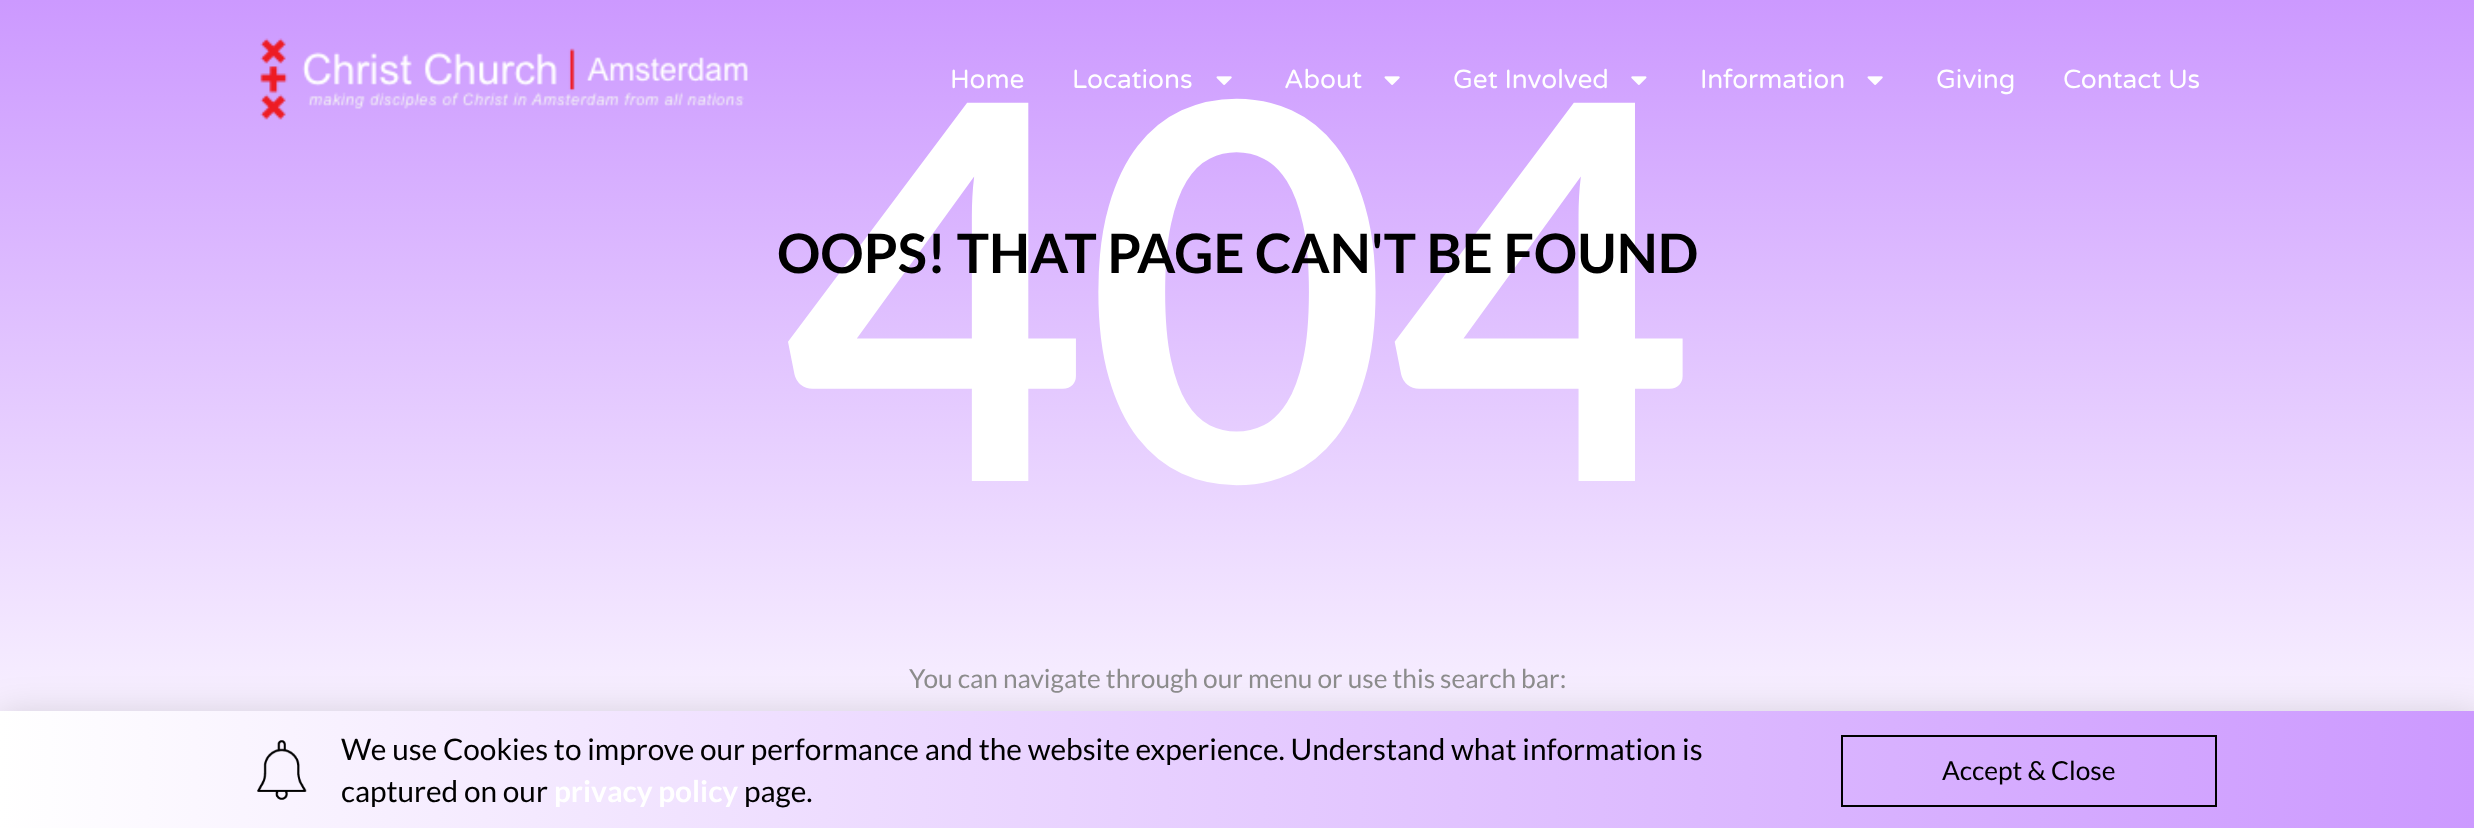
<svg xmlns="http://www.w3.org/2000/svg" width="2474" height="828">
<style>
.a{font:26.25px Varela Round;fill:#fff}
.b{font:bold 523px Lato;fill:#fff}
.c{font:bold 54.25px Lato;fill:#000}
.d{font:26.25px Lato;fill:#8c8c8c}
.e{font:29.75px Lato;fill:#000}
.f{font:bold 29.75px Lato;fill:#fff}
.g{font:26.25px Lato;fill:#000}
</style>
<defs>
<linearGradient id="g1" gradientUnits="userSpaceOnUse" x1="1237" y1="0" x2="1237" y2="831"><stop offset="0" stop-color="#c9f"/><stop offset="1" stop-color="#fff"/></linearGradient>
<linearGradient id="g2" gradientUnits="userSpaceOnUse" x1="0" y1="770" x2="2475" y2="770"><stop offset="0" stop-color="#fff"/><stop offset="1" stop-color="#c9f"/></linearGradient>
</defs>
<rect width="100%" height="100%" fill="#fff"/>
<path fill="url(#g1)" d="M0 0h2474v711H0z"/>
<image href="1.png" x="260" y="38" width="488" height="82"/>
<image href="2.png" x="1216" y="76" width="16" height="9"/>
<image href="2.png" x="1384" y="76" width="16" height="9"/>
<image href="3.png" x="1631" y="76" width="16" height="9"/>
<image href="2.png" x="1867" y="76" width="16" height="9"/>
<path fill="#00000033" filter="blur(20px)" d="M-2 719h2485v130H-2z"/>
<path fill="url(#g2)" d="M0 711h2474v117H0z"/>
<image href="4.png" x="257" y="740" width="50" height="60"/>
<path fill="none" stroke="#000" stroke-width="2" d="M1842 736h374v70H1842z"/>
<text class="a" x="950" y="88">Home</text>
<text class="a" x="1072" y="88">Locations</text>
<text class="a" x="1284" y="88">About</text>
<text class="a" x="1453" y="88">Get Involved</text>
<text class="a" x="1700" y="88">Information</text>
<text class="a" x="1936" y="88">Giving</text>
<text class="a" x="2063" y="88">Contact Us</text>
<text class="b" x="782" y="481">404</text>
<text class="c" x="777" y="273">OOPS! THAT PAGE CAN'T BE FOUND</text>
<text class="d" x="909" y="688">You can navigate through our menu or use this search bar:</text>
<text class="e" x="341" y="760">We use Cookies to improve our performance and the website experience. Understand what information is</text>
<text class="e" x="341" y="802">captured on our</text>
<text class="f" x="554" y="802">privacy policy</text>
<text class="e" x="744" y="802">page.</text>
<text class="g" x="1942" y="780">Accept &amp; Close</text>
</svg>
